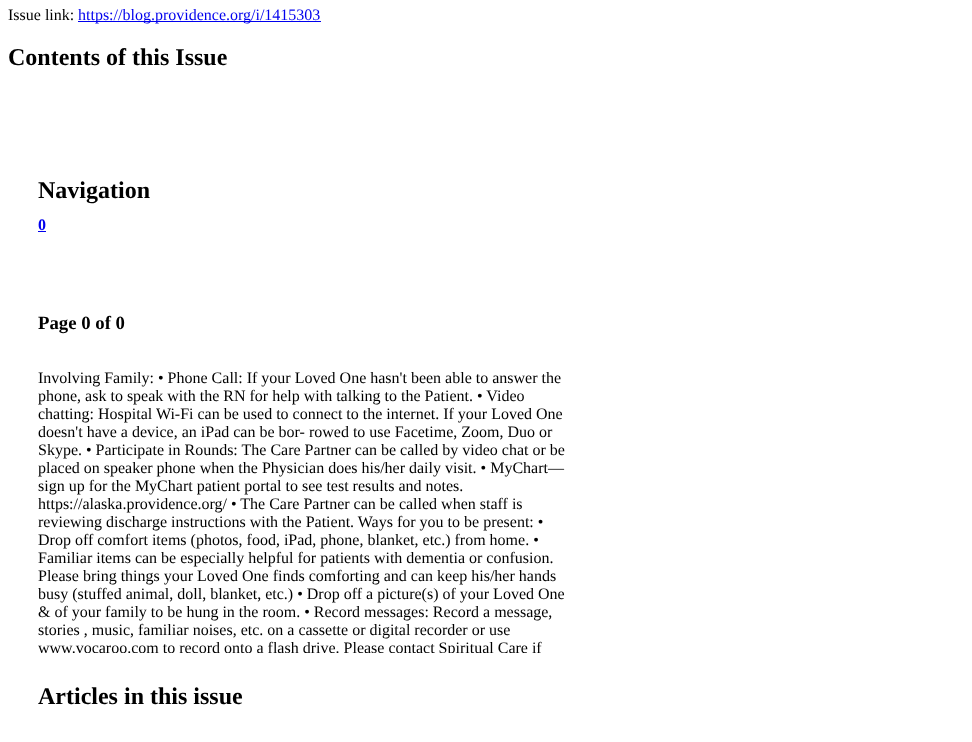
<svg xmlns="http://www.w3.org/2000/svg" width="972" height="742">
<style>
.a{font:16px Liberation Serif;fill:#000}
.b{font:16px Liberation Serif;fill:#00e}
.c{font:bold 24px Liberation Serif;fill:#000}
.d{font:bold 16px Liberation Serif;fill:#00e}
.e{font:bold 18.75px Liberation Serif;fill:#000}
</style>
<defs>
<clipPath id="clip1"><path d="M38 353h550v300H38z"/></clipPath>
</defs>
<rect width="100%" height="100%" fill="#fff"/>
<path fill="#00e" d="M78 21h243v1H78z"/>
<path fill="#00e" d="M38 231h8v1H38z"/>
<text class="a" x="8" y="20">Issue link:</text>
<text class="b" x="78" y="20">https://blog.providence.org/i/1415303</text>
<text class="c" x="8" y="65">Contents of this Issue</text>
<text class="c" x="38" y="198">Navigation</text>
<text class="d" x="38" y="230">0</text>
<text class="e" x="38" y="329">Page 0 of 0</text>
<text class="a" x="38" y="383">Involving Family: • Phone Call: If your Loved One hasn't been able to answer the</text>
<text class="a" x="38" y="401">phone, ask to speak with the RN for help with talking to the Patient. • Video</text>
<text class="a" x="38" y="419">chatting: Hospital Wi-Fi can be used to connect to the internet. If your Loved One</text>
<text class="a" x="38" y="437">doesn't have a device, an iPad can be bor- rowed to use Facetime, Zoom, Duo or</text>
<text class="a" x="38" y="455">Skype. • Participate in Rounds: The Care Partner can be called by video chat or be</text>
<text class="a" x="38" y="473">placed on speaker phone when the Physician does his/her daily visit. • MyChart—</text>
<text class="a" x="38" y="491">sign up for the MyChart patient portal to see test results and notes.</text>
<text class="a" x="38" y="509">https://alaska.providence.org/ • The Care Partner can be called when staff is</text>
<text class="a" x="38" y="527">reviewing discharge instructions with the Patient. Ways for you to be present: •</text>
<text class="a" x="38" y="545">Drop off comfort items (photos, food, iPad, phone, blanket, etc.) from home. •</text>
<text class="a" x="38" y="563">Familiar items can be especially helpful for patients with dementia or confusion.</text>
<text class="a" x="38" y="581">Please bring things your Loved One finds comforting and can keep his/her hands</text>
<text class="a" x="38" y="599">busy (stuffed animal, doll, blanket, etc.) • Drop off a picture(s) of your Loved One</text>
<text class="a" x="38" y="617">&amp; of your family to be hung in the room. • Record messages: Record a message,</text>
<text class="a" x="38" y="635">stories , music, familiar noises, etc. on a cassette or digital recorder or use</text>
<g clip-path="url(#clip1)">
<text class="a" x="38" y="653">www.vocaroo.com to record onto a flash drive. Please contact Spiritual Care if</text>
</g>
<text class="c" x="38" y="704">Articles in this issue</text>
</svg>
